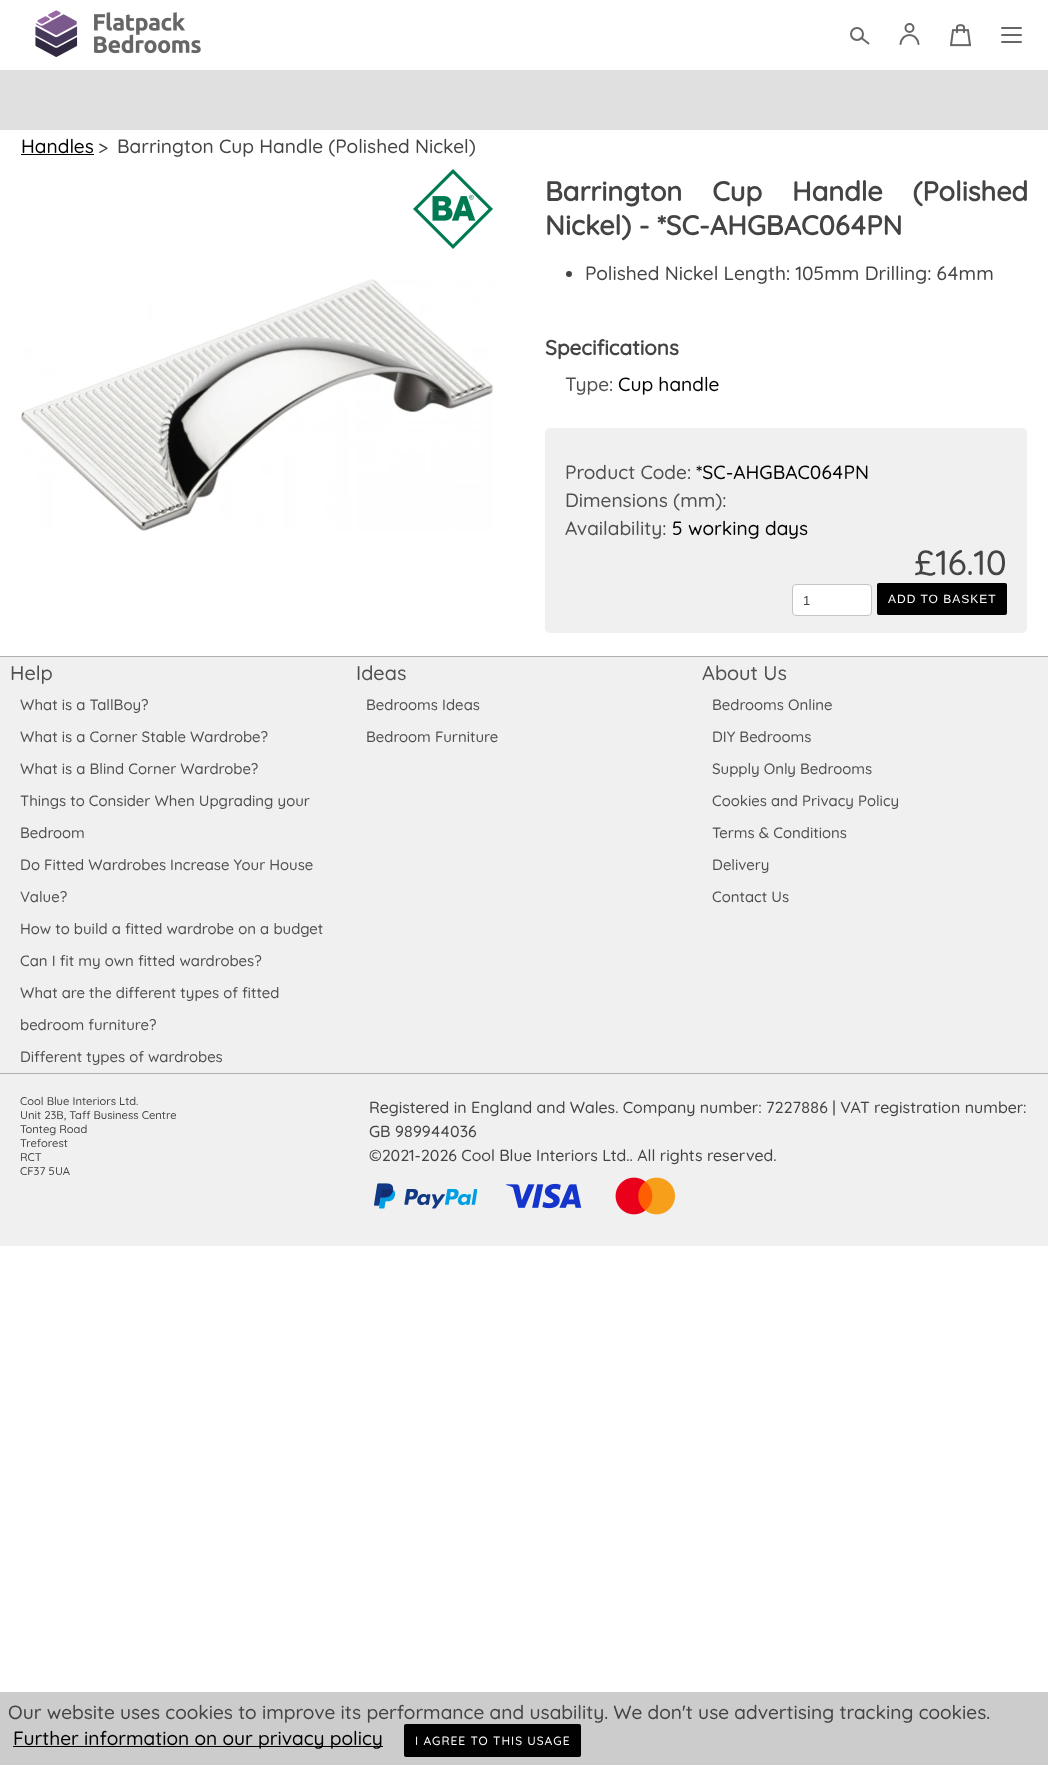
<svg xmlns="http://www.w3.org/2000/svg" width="1048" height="1765">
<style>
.a{font:300 19.2px Quicksand;fill:#010101}
.b{font:300 19.2px Quicksand;fill:#444}
.c{font:bold 27.25px Quicksand;fill:#444}
.d{font:bold 20.75px Quicksand;fill:#444}
.e{font:300 19.2px Quicksand;fill:#505050}
.f{font:300 35px Quicksand;fill:#444}
.g{font:13px Liberation Sans;fill:#444}
.h{font:12px Liberation Sans;letter-spacing:1px;fill:#fff}
.i{font:300 20px Quicksand;fill:#505050}
.j{font:300 15px Quicksand;fill:#505050}
.k{font:300 11.25px Quicksand;fill:#444}
.l{font:300 16px Quicksand;fill:#444}
.m{font:300 12px Quicksand;letter-spacing:1px;fill:#fff}
</style>
<rect width="100%" height="100%" fill="#fff"/>
<image href="1.png" x="35" y="10" width="166" height="47"/>
<circle fill="none" stroke="#666" stroke-width="2" cx="909.5" cy="28" r="4"/>
<image href="2.png" x="950" y="24" width="21" height="23"/>
<circle fill="none" stroke="#666" stroke-width="2" cx="857" cy="34" r="6"/>
<path fill="none" stroke="#666" stroke-width="2" stroke-linecap="round" d="M861.5 38l7 5.5m32 .5c1.5-12 16.5-12 18 0"/>
<path fill="none" stroke="#666" stroke-width="2" stroke-linecap="round" d="M1002 28h19m-19 7h19m-19 7h19"/>
<path fill="#e0e0e0" d="M0 70h1048v60H0z"/>
<path fill="#010101" d="M21 154h73v1H21z"/>
<image href="3.png" x="413" y="169" width="80" height="80"/>
<image href="4.png" x="21" y="279" width="472" height="252"/>
<circle fill="#444" cx="569" cy="274" r="3"/>
<rect fill="#f0f0f0" x="545" y="428" width="482" height="205" rx="5"/>
<rect fill="#fff" stroke="#c5c5c5" x="792.5" y="584.5" width="79" height="31" rx="3.5"/>
<rect fill="#010101" x="877" y="583" width="130" height="32" rx="2"/>
<path fill="#f0f0f0" d="M0 657h1048v589H0z"/>
<path fill="#b0b0b0" d="M0 656h1048v1H0z"/>
<path fill="#b0b0b0" d="M0 1073h1048v1H0z"/>
<image href="5.png" x="374" y="1183" width="103" height="26"/>
<image href="6.png" x="506" y="1183" width="76" height="26"/>
<image href="7.png" x="615" y="1177" width="60" height="38"/>
<path fill="#ccc" d="M0 1692h1048v73H0z"/>
<path fill="#010101" d="M13 1746h370v1H13z"/>
<rect fill="#010101" x="404" y="1724" width="177" height="33" rx="2"/>
<text class="a" x="21" y="153">Handles</text>
<text class="b" x="98" y="153">&gt;</text>
<text class="b" x="117" y="153">Barrington Cup Handle (Polished Nickel)</text>
<text class="c" x="545" y="201" word-spacing="22.5">Barrington Cup Handle (Polished</text>
<text class="c" x="545" y="235">Nickel) - *SC-AHGBAC064PN</text>
<text class="b" x="585" y="280">Polished Nickel Length: 105mm Drilling: 64mm</text>
<text class="d" x="545" y="355">Specifications</text>
<text class="e" x="565" y="391">Type:</text>
<text class="a" x="618" y="391">Cup handle</text>
<text class="e" x="565" y="479">Product Code:</text>
<text class="a" x="696" y="479">*SC-AHGBAC064PN</text>
<text class="e" x="565" y="507">Dimensions (mm):</text>
<text class="e" x="565" y="535">Availability:</text>
<text class="a" x="672" y="535">5 working days</text>
<text class="f" x="914" y="575">£16.10</text>
<text class="g" x="803" y="605">1</text>
<text class="h" x="888" y="603">ADD TO BASKET</text>
<text class="i" x="10" y="680">Help</text>
<text class="j" x="20" y="710">What is a TallBoy?</text>
<text class="j" x="20" y="742">What is a Corner Stable Wardrobe?</text>
<text class="j" x="20" y="774">What is a Blind Corner Wardrobe?</text>
<text class="j" x="20" y="806">Things to Consider When Upgrading your</text>
<text class="j" x="20" y="838">Bedroom</text>
<text class="j" x="20" y="870">Do Fitted Wardrobes Increase Your House</text>
<text class="j" x="20" y="902">Value?</text>
<text class="j" x="20" y="934">How to build a fitted wardrobe on a budget</text>
<text class="j" x="20" y="966">Can I fit my own fitted wardrobes?</text>
<text class="j" x="20" y="998">What are the different types of fitted</text>
<text class="j" x="20" y="1030">bedroom furniture?</text>
<text class="j" x="20" y="1062">Different types of wardrobes</text>
<text class="i" x="356" y="680">Ideas</text>
<text class="j" x="366" y="710">Bedrooms Ideas</text>
<text class="j" x="366" y="742">Bedroom Furniture</text>
<text class="i" x="702" y="680">About Us</text>
<text class="j" x="712" y="710">Bedrooms Online</text>
<text class="j" x="712" y="742">DIY Bedrooms</text>
<text class="j" x="712" y="774">Supply Only Bedrooms</text>
<text class="j" x="712" y="806">Cookies and Privacy Policy</text>
<text class="j" x="712" y="838">Terms &amp; Conditions</text>
<text class="j" x="712" y="870">Delivery</text>
<text class="j" x="712" y="902">Contact Us</text>
<text class="k" x="20" y="1105">Cool Blue Interiors Ltd.</text>
<text class="k" x="20" y="1119">Unit 23B, Taff Business Centre</text>
<text class="k" x="20" y="1133">Tonteg Road</text>
<text class="k" x="20" y="1147">Treforest</text>
<text class="k" x="20" y="1161">RCT</text>
<text class="k" x="20" y="1175">CF37 5UA</text>
<text class="l" x="369" y="1113">Registered in England and Wales. Company number: 7227886 | VAT registration number:</text>
<text class="l" x="369" y="1137">GB 989944036</text>
<text class="l" x="369" y="1161">©2021-2026 Cool Blue Interiors Ltd.. All rights reserved.</text>
<text class="b" x="8" y="1719">Our website uses cookies to improve its performance and usability. We don't use advertising tracking cookies.</text>
<text class="a" x="13" y="1745">Further information on our privacy policy</text>
<text class="m" x="415" y="1745">I AGREE TO THIS USAGE</text>
</svg>
